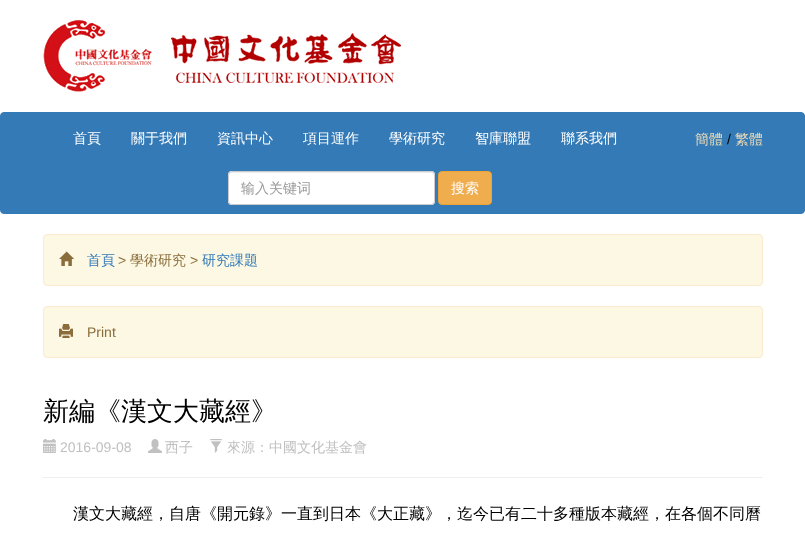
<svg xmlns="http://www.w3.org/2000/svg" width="805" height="535">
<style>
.a{font:500 14px WenQuanYi Zen Hei;fill:#fff}
.b{font:500 14px WenQuanYi Zen Hei;fill:#f5deb3}
.c{font:14px Liberation Sans;fill:#000}
.d{font:500 14px WenQuanYi Zen Hei;fill:#999}
.e{font:500 14px WenQuanYi Zen Hei;fill:#337ab7}
.f{font:14px Liberation Sans;fill:#8a6d3b}
.g{font:500 14px WenQuanYi Zen Hei;fill:#8a6d3b}
.h{font:500 26px WenQuanYi Zen Hei;fill:#000}
.i{font:14px Liberation Sans;fill:#c0c0c0}
.j{font:500 14px WenQuanYi Zen Hei;fill:#c0c0c0}
.k{font:500 16px WenQuanYi Zen Hei;fill:#000}
</style>
<defs>
<clipPath id="clip1"><path d="M241 180h181v18H241z"/></clipPath>
</defs>
<rect width="100%" height="100%" fill="#fff"/>
<image href="1.png" x="43" y="20" width="358" height="72"/>
<rect fill="#337ab7" stroke="#337ab7" x="0.5" y="112.5" width="804" height="101" rx="3.5"/>
<rect fill="#fff" x="228" y="171" width="207" height="34" rx="4"/>
<path fill="#ececec" d="M232 173h199c2 0 3 1 3 3c0-2-1-4-3-4h-199c-2 0-3 2-3 4c0-2 1-3 3-3z"/>
<rect fill="none" stroke="#ccc" x="228.5" y="171.5" width="206" height="33" rx="3.5"/>
<rect fill="#f0ad4e" stroke="#eea236" x="438.5" y="171.5" width="53" height="33" rx="3.5"/>
<rect fill="#fcf8e3" stroke="#faebcc" x="43.5" y="234.5" width="719" height="51" rx="3.5"/>
<image href="2.png" x="59" y="251" width="15" height="15"/>
<rect fill="#fcf8e3" stroke="#faebcc" x="43.5" y="306.5" width="719" height="51" rx="3.5"/>
<image href="3.png" x="59" y="324" width="14" height="14"/>
<image href="4.png" x="43" y="439" width="13" height="14"/>
<image href="5.png" x="148" y="439" width="14" height="14"/>
<image href="6.png" x="210" y="439" width="12" height="14"/>
<path fill="#eee" d="M43 477h720v1H43z"/>
<text class="a" x="73" y="143">首頁</text>
<text class="a" x="131" y="143">關于我們</text>
<text class="a" x="217" y="143">資訊中心</text>
<text class="a" x="303" y="143">項目運作</text>
<text class="a" x="389" y="143">學術研究</text>
<text class="a" x="475" y="143">智庫聯盟</text>
<text class="a" x="561" y="143">聯系我們</text>
<text class="b" x="695" y="144">簡體</text>
<text class="c" x="727" y="144">/</text>
<text class="b" x="735" y="144">繁體</text>
<g clip-path="url(#clip1)">
<text class="d" x="241" y="193">输入关键词</text>
</g>
<text class="a" x="451" y="193">搜索</text>
<text class="e" x="87" y="265">首頁</text>
<text class="f" x="118" y="265">&gt;</text>
<text class="g" x="130" y="265">學術研究</text>
<text class="f" x="190" y="265">&gt;</text>
<text class="e" x="202" y="265">研究課題</text>
<text class="f" x="87" y="337">Print</text>
<text class="h" x="43" y="420">新編《漢文大藏經》</text>
<text class="i" x="60" y="452">2016-09-08</text>
<text class="j" x="165" y="452">西子</text>
<text class="j" x="227" y="452">來源：中國文化基金會</text>
<text class="k" x="73" y="519">漢文大藏經，自唐《開元錄》一直到日本《大正藏》，迄今已有二十多種版本藏經，在各個不同曆</text>
</svg>
